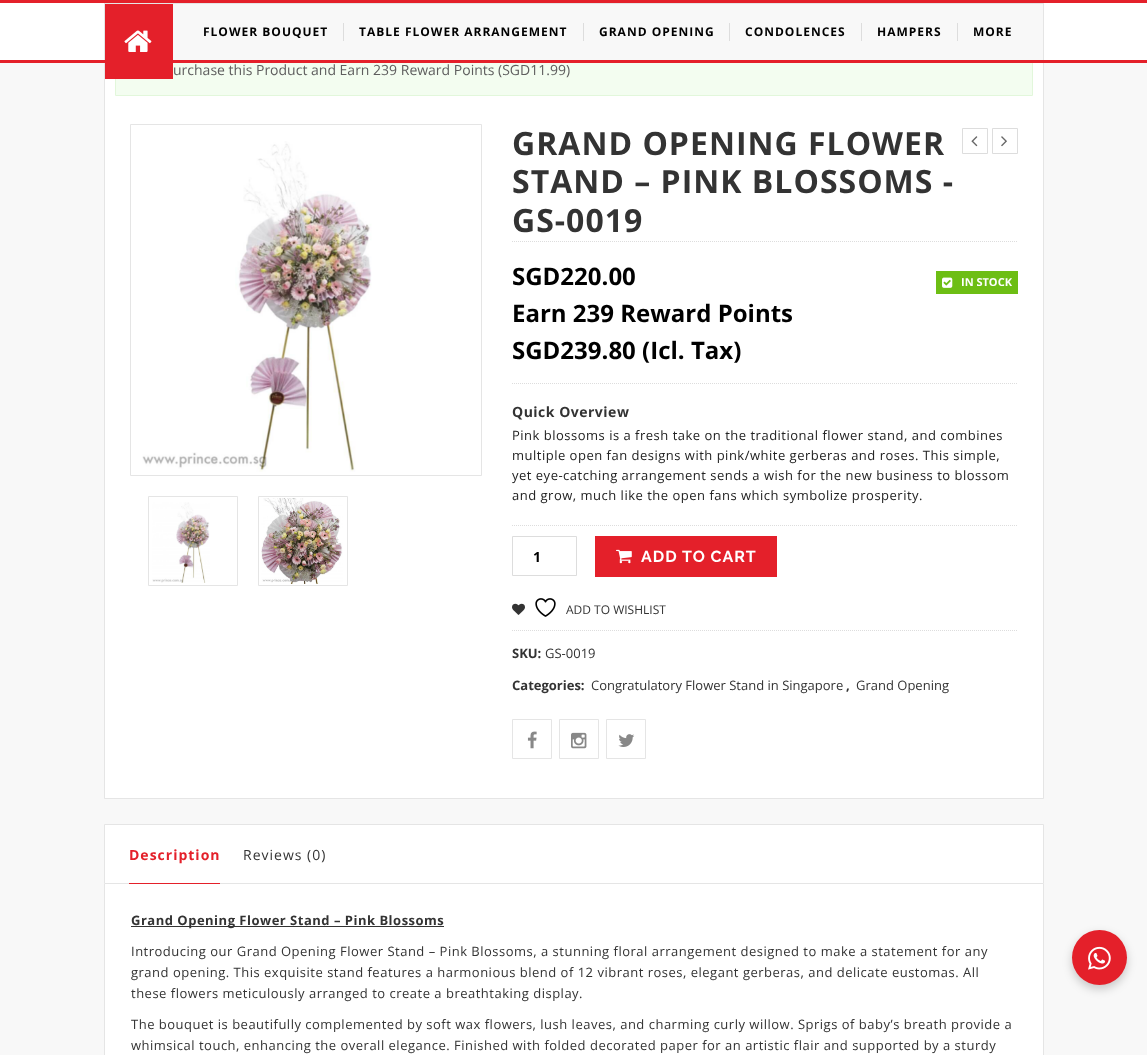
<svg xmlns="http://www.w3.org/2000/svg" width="1147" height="1055">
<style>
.a{font:bold 12px Open Sans;letter-spacing:1px;fill:#000}
.b{font:14px Open Sans;fill:#5e5e5e}
.c{font:bold 32px Open Sans;letter-spacing:1px;fill:#333}
.d{font:bold 24px Open Sans;fill:#000}
.e{font:bold 11px Open Sans;fill:#fff}
.f{font:bold 14px Open Sans;letter-spacing:0.5px;fill:#333}
.g{font:13px Open Sans;letter-spacing:0.5px;fill:#222}
.h{font:bold 14px Open Sans;fill:#000}
.i{font:bold 16px Raleway;letter-spacing:1px;fill:#fff}
.j{font:12px Open Sans;fill:#333}
.k{font:bold 13px Open Sans;fill:#333}
.l{font:13px Open Sans;fill:#333}
.m{font:bold 14px Open Sans;letter-spacing:1px;fill:#e4202a}
.n{font:14px Open Sans;letter-spacing:1px;fill:#333}
.o{font:bold 13px Open Sans;letter-spacing:0.5px;fill:#333}
.p{font:13px Open Sans;letter-spacing:0.5px;fill:#333}
</style>
<rect width="100%" height="100%" fill="#f8f8f8"/>
<path fill="#fff" d="M105 63h938v735H105z"/>
<path fill="none" stroke="#e5e5e5" d="M104.5 18.5h939v780H104.5z"/>
<path fill="#f3fdf0" d="M116 63h916v32H116z"/>
<path fill="none" stroke="#e2f7db" d="M115.5 44.5h917v51H115.5z"/>
<path fill="#fff" d="M0 3h1147v57H0z"/>
<path fill="#e4202a" d="M0 0h1147v3H0z"/>
<path fill="#e4202a" d="M0 60h1147v3H0z"/>
<path fill="#f8f8f8" d="M173 4h870v56H173z"/>
<path fill="#e5e5e5" d="M104 3h940v1H104z"/>
<path fill="#e5e5e5" d="M1043 3h1v57H1043z"/>
<path fill="#e5e5e5" d="M104 3h1v57H104z"/>
<path fill="#e4202a" d="M105 4h68v75H105z"/>
<image href="1.png" x="124" y="30" width="28" height="22"/>
<path fill="#ddd" d="M343 23h1v18H343z"/>
<path fill="#ddd" d="M583 23h1v18H583z"/>
<path fill="#ddd" d="M729 23h1v18H729z"/>
<path fill="#ddd" d="M861 23h1v18H861z"/>
<path fill="#ddd" d="M957 23h1v18H957z"/>
<path fill="none" stroke="#e5e5e5" d="M130.5 124.5h351v351H130.5z"/>
<image href="2.png" x="142" y="141" width="230" height="331"/>
<path fill="none" stroke="#e5e5e5" d="M148.5 496.5h89v89H148.5z"/>
<image href="3.png" x="152" y="502" width="58" height="81"/>
<path fill="none" stroke="#e5e5e5" d="M258.5 496.5h89v89H258.5z"/>
<image href="4.png" x="261" y="498" width="82" height="86"/>
<path fill="none" stroke="#ddd" d="M962.5 128.5h25v25H962.5z"/>
<image href="5.png" x="971" y="136" width="7" height="11"/>
<path fill="none" stroke="#ddd" d="M992.5 128.5h25v25H992.5z"/>
<image href="6.png" x="1001" y="136" width="6" height="11"/>
<path fill="none" stroke="#ddd" stroke-dasharray="1 1" d="M512 241.5h506"/>
<path fill="none" stroke="#ddd" stroke-dasharray="1 1" d="M512 383.5h506"/>
<path fill="#6dbe14" d="M936 271h82v23H936z"/>
<image href="7.png" x="942" y="277" width="11" height="11"/>
<path fill="none" stroke="#ddd" stroke-dasharray="1 1" d="M512 525.5h506"/>
<path fill="none" stroke="#ddd" d="M512.5 536.5h64v39H512.5z"/>
<path fill="#e4202a" d="M595 536h182v41H595z"/>
<image href="8.png" x="616" y="549" width="16" height="15"/>
<image href="9.png" x="512" y="603" width="13" height="12"/>
<image href="10.png" x="535" y="598" width="21" height="19"/>
<path fill="none" stroke="#ddd" stroke-dasharray="1 1" d="M512 630.5h506"/>
<path fill="none" stroke="#e5e5e5" d="M512.5 719.5h39v39H512.5z"/>
<image href="11.png" x="527" y="731" width="10" height="18"/>
<path fill="none" stroke="#e5e5e5" d="M559.5 719.5h39v39H559.5z"/>
<image href="12.png" x="571" y="732" width="16" height="17"/>
<path fill="none" stroke="#e5e5e5" d="M606.5 719.5h39v39H606.5z"/>
<image href="13.png" x="618" y="734" width="17" height="13"/>
<path fill="#fff" stroke="#e5e5e5" d="M104.5 824.5h939v59H104.5z"/>
<path fill="#e4202a" d="M129 883h91v1H129z"/>
<path fill="#fff" d="M105 884h938v171H105z"/>
<path fill="#e5e5e5" d="M1043 884h1v171H1043z"/>
<path fill="#e5e5e5" d="M104 884h1v171H104z"/>
<path fill="#333" d="M131 926h313v1H131z"/>
<rect fill="#00000033" filter="blur(5px)" x="1072" y="934" width="55" height="55" rx="27.5"/>
<circle fill="#e4202a" cx="1099.5" cy="957.5" r="27.5"/>
<image href="14.png" x="1088" y="946" width="23" height="24"/>
<text class="a" x="203" y="36">FLOWER BOUQUET</text>
<text class="a" x="359" y="36">TABLE FLOWER ARRANGEMENT</text>
<text class="a" x="599" y="36">GRAND OPENING</text>
<text class="a" x="745" y="36">CONDOLENCES</text>
<text class="a" x="877" y="36">HAMPERS</text>
<text class="a" x="973" y="36">MORE</text>
<text class="b" x="173" y="75">urchase this Product and Earn 239 Reward Points (SGD11.99)</text>
<text class="c" x="512" y="155">GRAND OPENING FLOWER</text>
<text class="c" x="512" y="193">STAND – PINK BLOSSOMS -</text>
<text class="c" x="512" y="232">GS-0019</text>
<text class="d" x="512" y="285">SGD220.00</text>
<text class="d" x="512" y="322">Earn 239 Reward Points</text>
<text class="d" x="512" y="359">SGD239.80 (Icl. Tax)</text>
<text class="e" x="961" y="286">IN STOCK</text>
<text class="f" x="512" y="417">Quick Overview</text>
<text class="g" x="512" y="440">Pink blossoms is a fresh take on the traditional flower stand, and combines</text>
<text class="g" x="512" y="460">multiple open fan designs with pink/white gerberas and roses. This simple,</text>
<text class="g" x="512" y="480">yet eye-catching arrangement sends a wish for the new business to blossom</text>
<text class="g" x="512" y="500">and grow, much like the open fans which symbolize prosperity.</text>
<text class="h" x="533" y="562">1</text>
<text class="i" x="641" y="562">ADD TO CART</text>
<text class="j" x="566" y="614">ADD TO WISHLIST</text>
<text class="k" x="512" y="658">SKU:</text>
<text class="l" x="545" y="658">GS-0019</text>
<text class="k" x="512" y="690">Categories:</text>
<text class="l" x="591" y="690">Congratulatory Flower Stand in Singapore</text>
<text class="k" x="846" y="690">,</text>
<text class="l" x="856" y="690">Grand Opening</text>
<text class="m" x="129" y="860">Description</text>
<text class="n" x="243" y="860">Reviews (0)</text>
<text class="o" x="131" y="925">Grand Opening Flower Stand – Pink Blossoms</text>
<text class="p" x="131" y="956">Introducing our Grand Opening Flower Stand – Pink Blossoms, a stunning floral arrangement designed to make a statement for any</text>
<text class="p" x="131" y="977">grand opening. This exquisite stand features a harmonious blend of 12 vibrant roses, elegant gerberas, and delicate eustomas. All</text>
<text class="p" x="131" y="998">these flowers meticulously arranged to create a breathtaking display.</text>
<text class="p" x="131" y="1029">The bouquet is beautifully complemented by soft wax flowers, lush leaves, and charming curly willow. Sprigs of baby’s breath provide a</text>
<text class="p" x="131" y="1050">whimsical touch, enhancing the overall elegance. Finished with folded decorated paper for an artistic flair and supported by a sturdy</text>
</svg>
